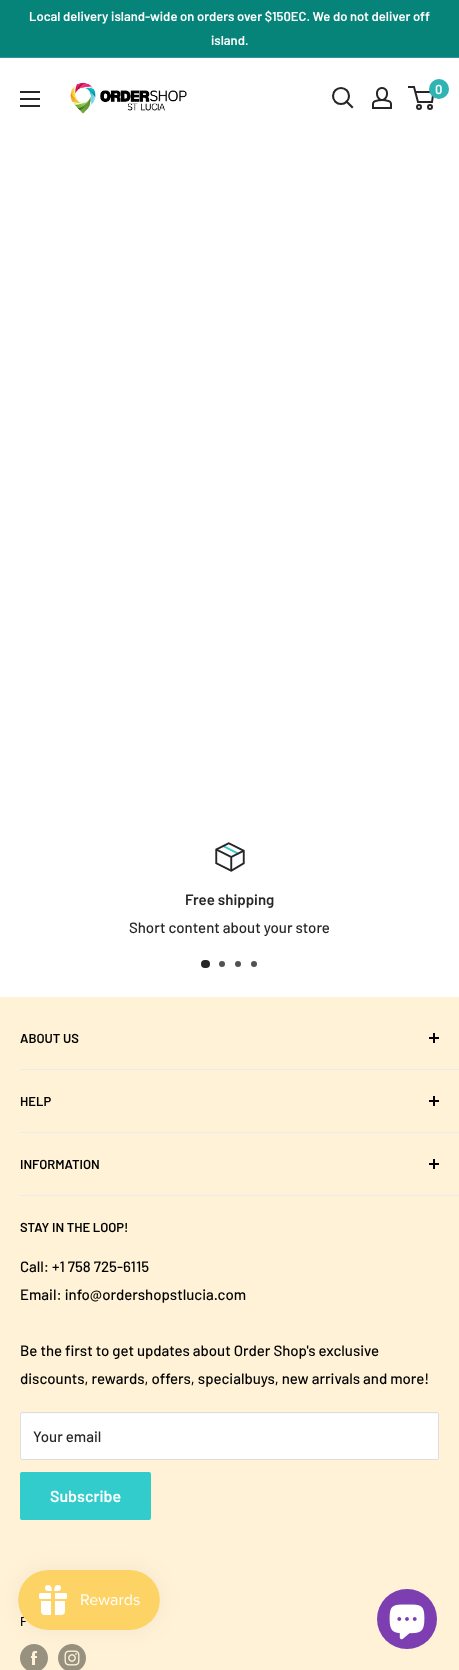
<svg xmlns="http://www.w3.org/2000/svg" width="459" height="1670">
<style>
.a{font:600 13px Barlow;fill:#fff}
.b{font:600 15px Barlow;fill:#262626}
.c{font:500 15px Barlow;fill:#262626}
.d{font:600 13px Barlow;fill:#000}
.e{font:500 15px Barlow;fill:#000}
.f{font:600 16px Barlow;fill:#fff}
.g{font:500 13px Barlow;fill:#000}
</style>
<rect width="100%" height="100%" fill="#fff"/>
<path fill="#06847a" d="M0 0h459v57H0z"/>
<path fill="#35919d" d="M0 57h459v1H0z"/>
<image href="1.png" x="70" y="82" width="117" height="32"/>
<path fill="none" stroke="#262626" stroke-width="2.1" stroke-linecap="square" d="M352 107l-5.5-5.5"/>
<circle fill="none" stroke="#262626" stroke-width="2.1" cx="341" cy="96" r="8"/>
<image href="2.png" x="372" y="87" width="20" height="22"/>
<circle fill="none" stroke="#262626" stroke-width="2" cx="419" cy="107" r="2"/>
<circle fill="none" stroke="#262626" stroke-width="2" cx="430" cy="107" r="2"/>
<path fill="none" stroke="#262626" stroke-width="2" d="M415.5 92h18l-1.5 10h-14l-4-15h-6"/>
<circle fill="#30b3b3" cx="439" cy="89" r="10"/>
<image href="3.png" x="20" y="91" width="20" height="16"/>
<image href="4.png" x="215" y="842" width="30" height="30"/>
<rect fill="#262626" x="201" y="960" width="9" height="8" rx="4"/>
<circle fill="#515151" cx="222" cy="964" r="3"/>
<circle fill="#515151" cx="238" cy="964" r="3"/>
<circle fill="#515151" cx="254" cy="964" r="3"/>
<path fill="#fff2d6" d="M0 997h459v673H0z"/>
<path fill="#ebebeb" d="M20 1069h439v1H20z"/>
<path fill="#000" d="M433 1033h2v10H433z"/>
<path fill="#000" d="M429 1037h10v2H429z"/>
<path fill="#ebebeb" d="M20 1132h439v1H20z"/>
<path fill="#000" d="M433 1096h2v10H433z"/>
<path fill="#000" d="M429 1100h10v2H429z"/>
<path fill="#ebebeb" d="M20 1195h439v1H20z"/>
<path fill="#000" d="M433 1159h2v10H433z"/>
<path fill="#000" d="M429 1163h10v2H429z"/>
<rect fill="#fff" x="20" y="1412" width="419" height="48" rx="2"/>
<path fill="#fafafa" d="M22 1414h415h1v1v-1l-1-1h-416v2c0-1 0-1 1-1z"/>
<rect fill="none" stroke="#dedede" x="20.5" y="1412.5" width="418" height="47" rx="1.5"/>
<rect fill="#3cc" x="20" y="1472" width="131" height="48" rx="2"/>
<image href="5.png" x="20" y="1644" width="28" height="26"/>
<image href="6.png" x="58" y="1644" width="28" height="26"/>
<rect fill="#0000000d" filter="blur(12.5px)" x="18" y="1570" width="142" height="60" rx="30"/>
<circle fill="#7c3eb0" cx="407" cy="1619" r="30"/>
<image href="8.png" x="389" y="1604" width="36" height="36"/>
<text class="a" x="29" y="21">Local delivery island-wide on orders over $150EC. We do not deliver off</text>
<text class="a" x="211" y="45">island.</text>
<text class="a" x="435" y="94">0</text>
<text class="b" x="185" y="905">Free shipping</text>
<text class="c" x="129" y="933">Short content about your store</text>
<text class="d" x="20" y="1043">ABOUT US</text>
<text class="d" x="20" y="1106">HELP</text>
<text class="d" x="20" y="1169">INFORMATION</text>
<text class="d" x="20" y="1232">STAY IN THE LOOP!</text>
<text class="e" x="20" y="1272">Call: +1 758 725-6115</text>
<text class="e" x="20" y="1300">Email: info@ordershopstlucia.com</text>
<text class="e" x="20" y="1356">Be the first to get updates about Order Shop's exclusive</text>
<text class="e" x="20" y="1384">discounts, rewards, offers, specialbuys, new arrivals and more!</text>
<text class="c" x="33" y="1442">Your email</text>
<text class="f" x="50" y="1502">Subscribe</text>
<text class="g" x="20" y="1626">F</text>
<image href="7.png" x="18" y="1570" width="142" height="60"/>
</svg>
